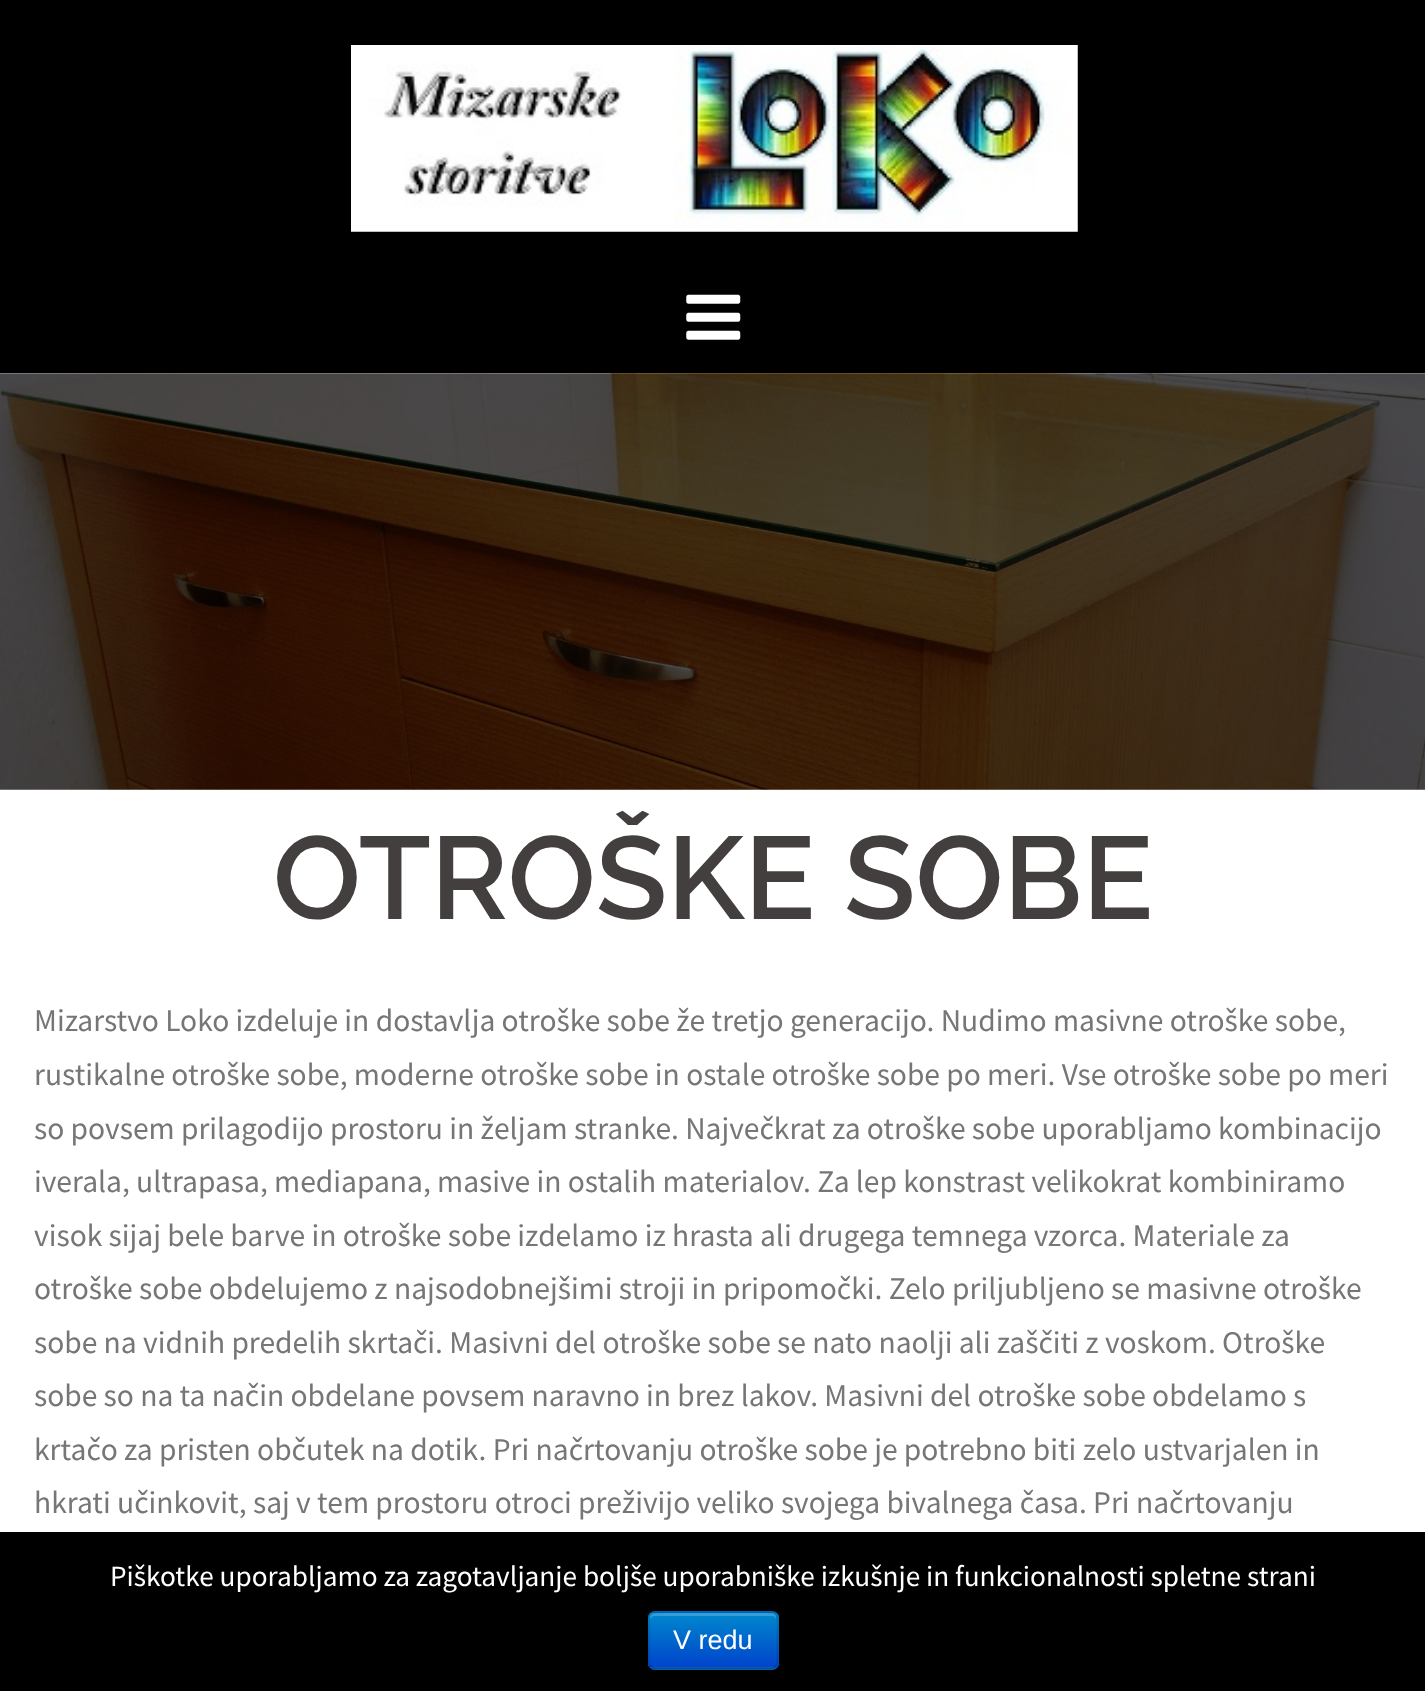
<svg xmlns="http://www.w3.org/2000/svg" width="1425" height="1691">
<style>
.a{font:600 117px Raleway;fill:#443f3f}
.b{font:31.5px Source Sans Pro;fill:#767676}
.c{font:29.25px Source Sans Pro;fill:#fff}
.d{font:27px Liberation Sans;fill:#fff}
</style>
<defs>
<clipPath id="clip1"><rect x="648" y="1611" width="131" height="59" rx="7"/></clipPath>
<linearGradient id="g1" gradientUnits="userSpaceOnUse" x1="713" y1="1613" x2="713" y2="1667"><stop offset="0" stop-color="#08c"/><stop offset="1" stop-color="#04c"/></linearGradient>
</defs>
<rect width="100%" height="100%" fill="#fff"/>
<path fill="#000" d="M0 0h1425v374H0z"/>
<image href="1.png" x="351" y="45" width="727" height="187"/>
<image href="2.png" x="686" y="294" width="55" height="46"/>
<image href="3.png" x="0" y="373" width="1425" height="417"/>
<path fill="#000" d="M0 1532h1425v159H0z"/>
<rect fill="#006dcc" x="648" y="1611" width="131" height="59" rx="7"/>
<g clip-path="url(#clip1)">
<path fill="url(#g1)" d="M648 1613h131v54H648z"/>
</g>
<path fill="#ffffff33" d="M655 1616h117c2 0 4 2 4 4v-2c0-3-2-5-5-5h-116c-3 0-5 2-5 5v2c0-2 2-4 5-4z"/>
<path fill="none" stroke="#00000040" stroke-width="2.2" d="M775.5 1666.5c-1 1.5-2.5 2-3.5 2h-117c-1.5 0-3-.5-4-2"/>
<path fill="none" stroke="#0000001a" stroke-width="2.2" d="M651 1666.5c-3-2.5-2-8-2-11.5v-15c0-31.5-5.5-28 25-28h78c31 0 25.5-3.5 25.5 28v15c0 3.5 1 9-2 11.5"/>
<text class="a" x="273" y="919">OTROŠKE SOBE</text>
<text class="b" x="34" y="1031">Mizarstvo Loko izdeluje in dostavlja otroške sobe že tretjo generacijo. Nudimo masivne otroške sobe,</text>
<text class="b" x="34" y="1085">rustikalne otroške sobe, moderne otroške sobe in ostale otroške sobe po meri. Vse otroške sobe po meri</text>
<text class="b" x="34" y="1139">so povsem prilagodijo prostoru in željam stranke. Največkrat za otroške sobe uporabljamo kombinacijo</text>
<text class="b" x="34" y="1192">iverala, ultrapasa, mediapana, masive in ostalih materialov. Za lep konstrast velikokrat kombiniramo</text>
<text class="b" x="34" y="1246">visok sijaj bele barve in otroške sobe izdelamo iz hrasta ali drugega temnega vzorca. Materiale za</text>
<text class="b" x="34" y="1299">otroške sobe obdelujemo z najsodobnejšimi stroji in pripomočki. Zelo priljubljeno se masivne otroške</text>
<text class="b" x="34" y="1353">sobe na vidnih predelih skrtači. Masivni del otroške sobe se nato naolji ali zaščiti z voskom. Otroške</text>
<text class="b" x="34" y="1406">sobe so na ta način obdelane povsem naravno in brez lakov. Masivni del otroške sobe obdelamo s</text>
<text class="b" x="34" y="1460">krtačo za pristen občutek na dotik. Pri načrtovanju otroške sobe je potrebno biti zelo ustvarjalen in</text>
<text class="b" x="34" y="1513">hkrati učinkovit, saj v tem prostoru otroci preživijo veliko svojega bivalnega časa. Pri načrtovanju</text>
<text class="c" x="110" y="1586">Piškotke uporabljamo za zagotavljanje boljše uporabniške izkušnje in funkcionalnosti spletne strani</text>
<text class="d" x="673" y="1649">V redu</text>
</svg>
